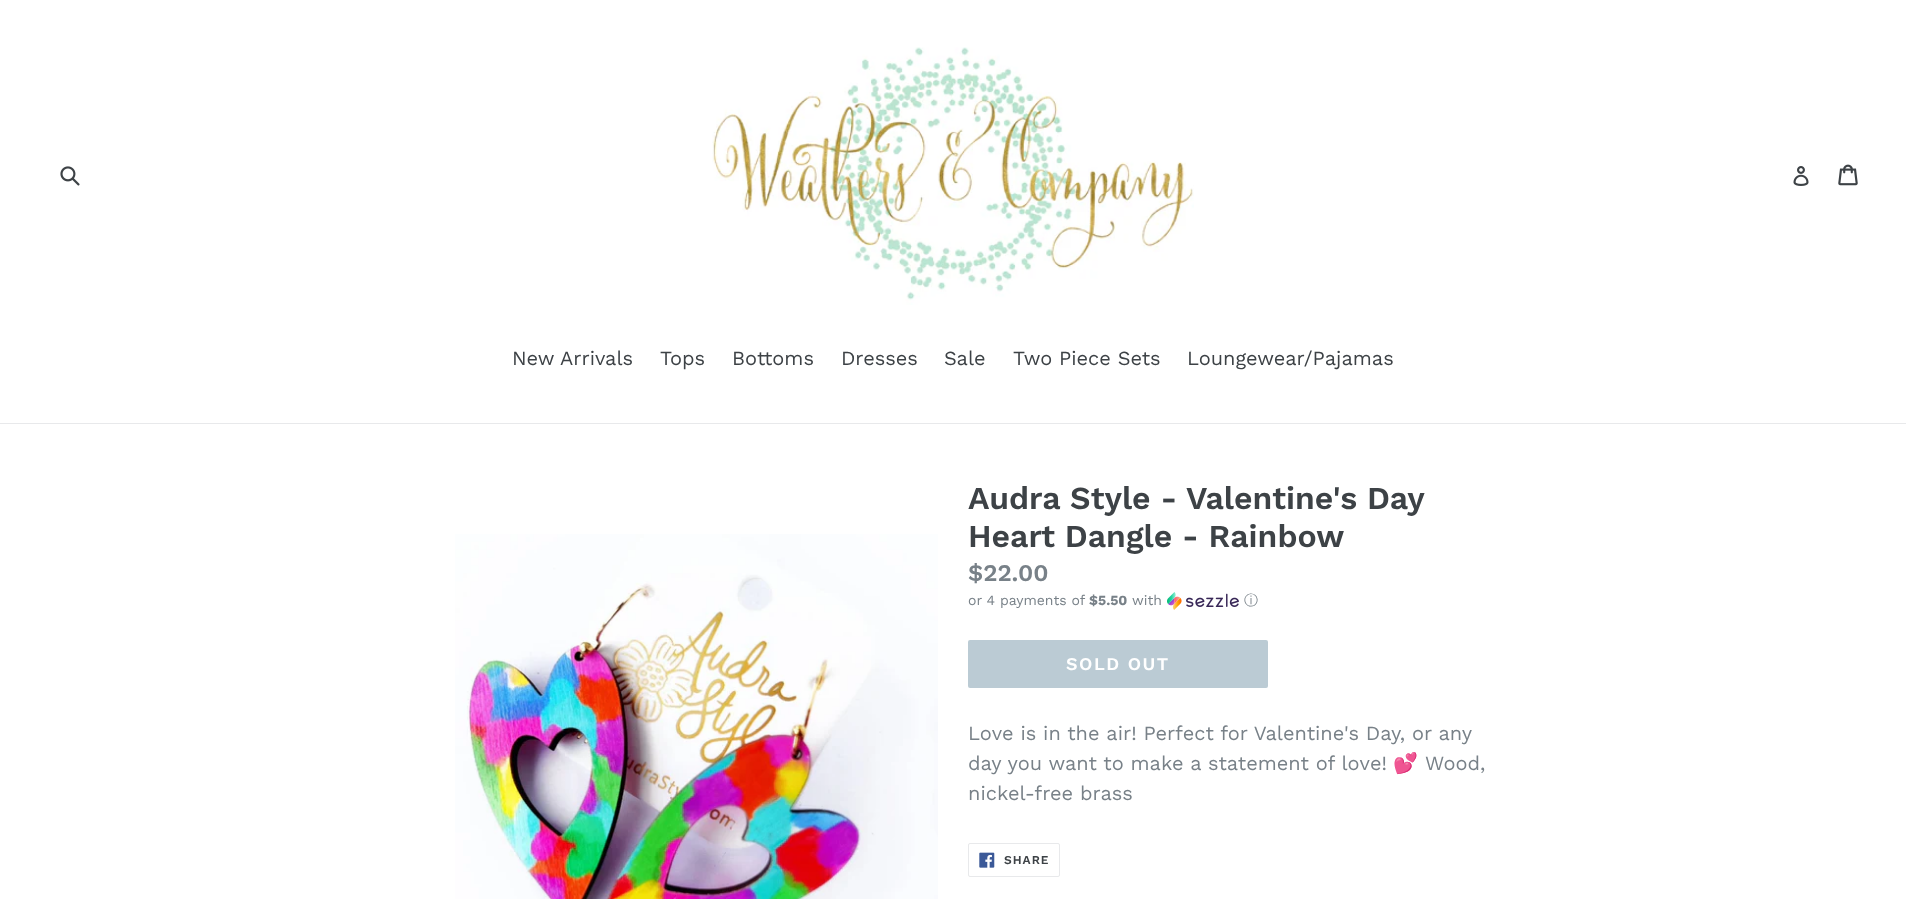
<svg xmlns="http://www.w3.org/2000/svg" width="1906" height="899">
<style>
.a{font:20px Work Sans;fill:#3d4246}
.b{font:600 32px Work Sans;fill:#3d4246}
.c{font:600 24px Work Sans;fill:#788188}
.d{font:14px Work Sans;fill:#788188}
.e{font:bold 14px Work Sans;fill:#788188}
.f{font:500 14px WenQuanYi Zen Hei;fill:#788188}
.g{font:600 18px Work Sans;letter-spacing:1.5px;fill:#fff}
.h{font:20px Work Sans;fill:#788188}
.i{font:20px Noto Color Emoji;fill:#788188}
.j{font:600 12px Work Sans;letter-spacing:1px;fill:#3d4246}
</style>
<rect width="100%" height="100%" fill="#fff"/>
<image href="1.png" x="60" y="166" width="20" height="20"/>
<image href="2.png" x="712" y="47" width="482" height="258"/>
<image href="3.png" x="1793" y="166" width="16" height="20"/>
<image href="4.png" x="1838" y="164" width="20" height="22"/>
<path fill="#e8e9eb" d="M0 423h1906v1H0z"/>
<image href="5.png" x="455" y="534" width="483" height="365"/>
<image href="6.png" x="1167" y="592" width="72" height="18"/>
<rect fill="#bbcbd4" x="968" y="640" width="300" height="48" rx="2"/>
<rect fill="none" stroke="#e8e9eb" x="968.5" y="843.5" width="91" height="33" rx="1.5"/>
<image href="7.png" x="979" y="852" width="16" height="16"/>
<text class="a" x="512" y="365">New Arrivals</text>
<text class="a" x="660" y="365">Tops</text>
<text class="a" x="732" y="365">Bottoms</text>
<text class="a" x="841" y="365">Dresses</text>
<text class="a" x="944" y="365">Sale</text>
<text class="a" x="1013" y="365">Two Piece Sets</text>
<text class="a" x="1187" y="365">Loungewear/Pajamas</text>
<text class="b" x="968" y="509">Audra Style - Valentine's Day</text>
<text class="b" x="968" y="547">Heart Dangle - Rainbow</text>
<text class="c" x="968" y="581">$22.00</text>
<text class="d" x="968" y="605">or 4 payments of</text>
<text class="e" x="1089" y="605">$5.50</text>
<text class="d" x="1132" y="605">with</text>
<text class="f" x="1244" y="605">ⓘ</text>
<text class="g" x="1066" y="670">SOLD OUT</text>
<text class="h" x="968" y="740">Love is in the air! Perfect for Valentine's Day, or any</text>
<text class="h" x="968" y="770">day you want to make a statement of love!</text>
<text class="i" x="1393" y="770">💕</text>
<text class="h" x="1425" y="770">Wood,</text>
<text class="h" x="968" y="800">nickel-free brass</text>
<text class="j" x="1004" y="864">SHARE</text>
</svg>
